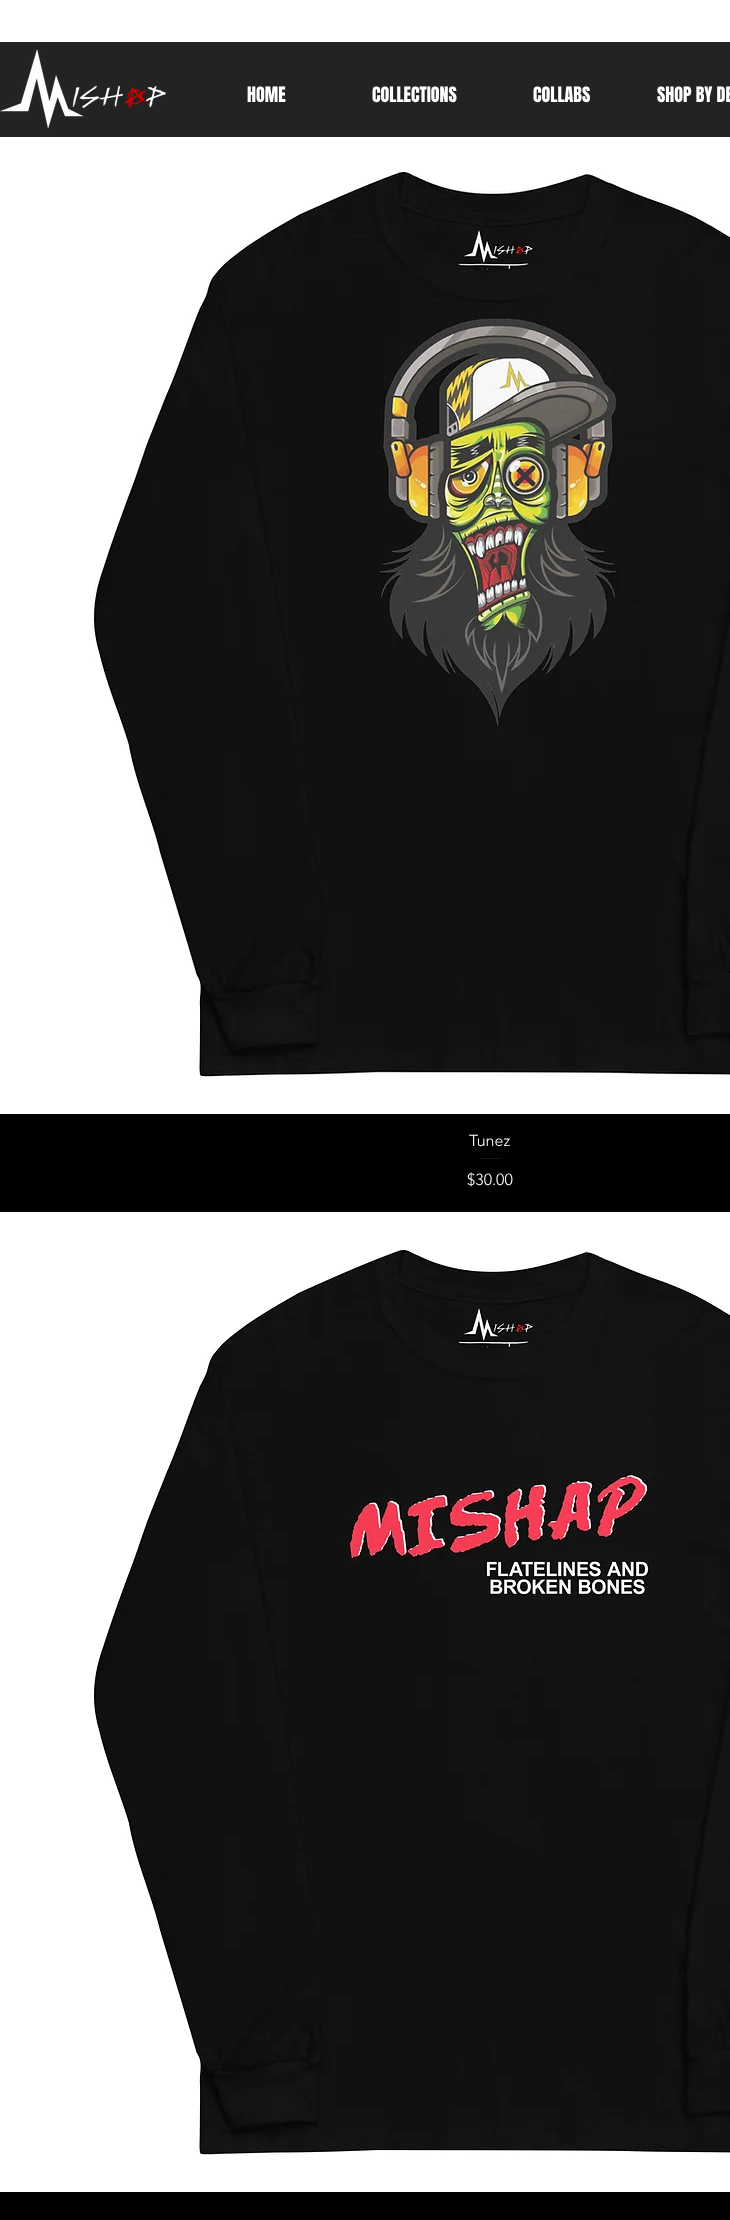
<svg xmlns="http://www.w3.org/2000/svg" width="730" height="2220">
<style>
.a{font:18px Anton;fill:#fff}
.b{font:300 16px 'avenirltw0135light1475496';fill:#fff}
</style>
<rect width="100%" height="100%" fill="#fff"/>
<path fill="#242323" d="M0 42h730v95H0z"/>
<image href="1.png" x="0" y="49" width="166" height="80"/>
<path fill="#000" d="M0 1114h730v1106H0z"/>
<image href="2.png" x="0" y="137" width="730" height="977"/>
<path fill="#181818" d="M480 1158h20v1H480z"/>
<image href="3.png" x="0" y="1212" width="730" height="980"/>
<text class="a" x="247" y="102">HOME</text>
<text class="a" x="372" y="102">COLLECTIONS</text>
<text class="a" x="533" y="102">COLLABS</text>
<text class="a" x="657" y="102">SHOP BY DE</text>
<text class="b" x="469" y="1146">Tunez</text>
<text class="b" x="467" y="1185">$30.00</text>
</svg>
